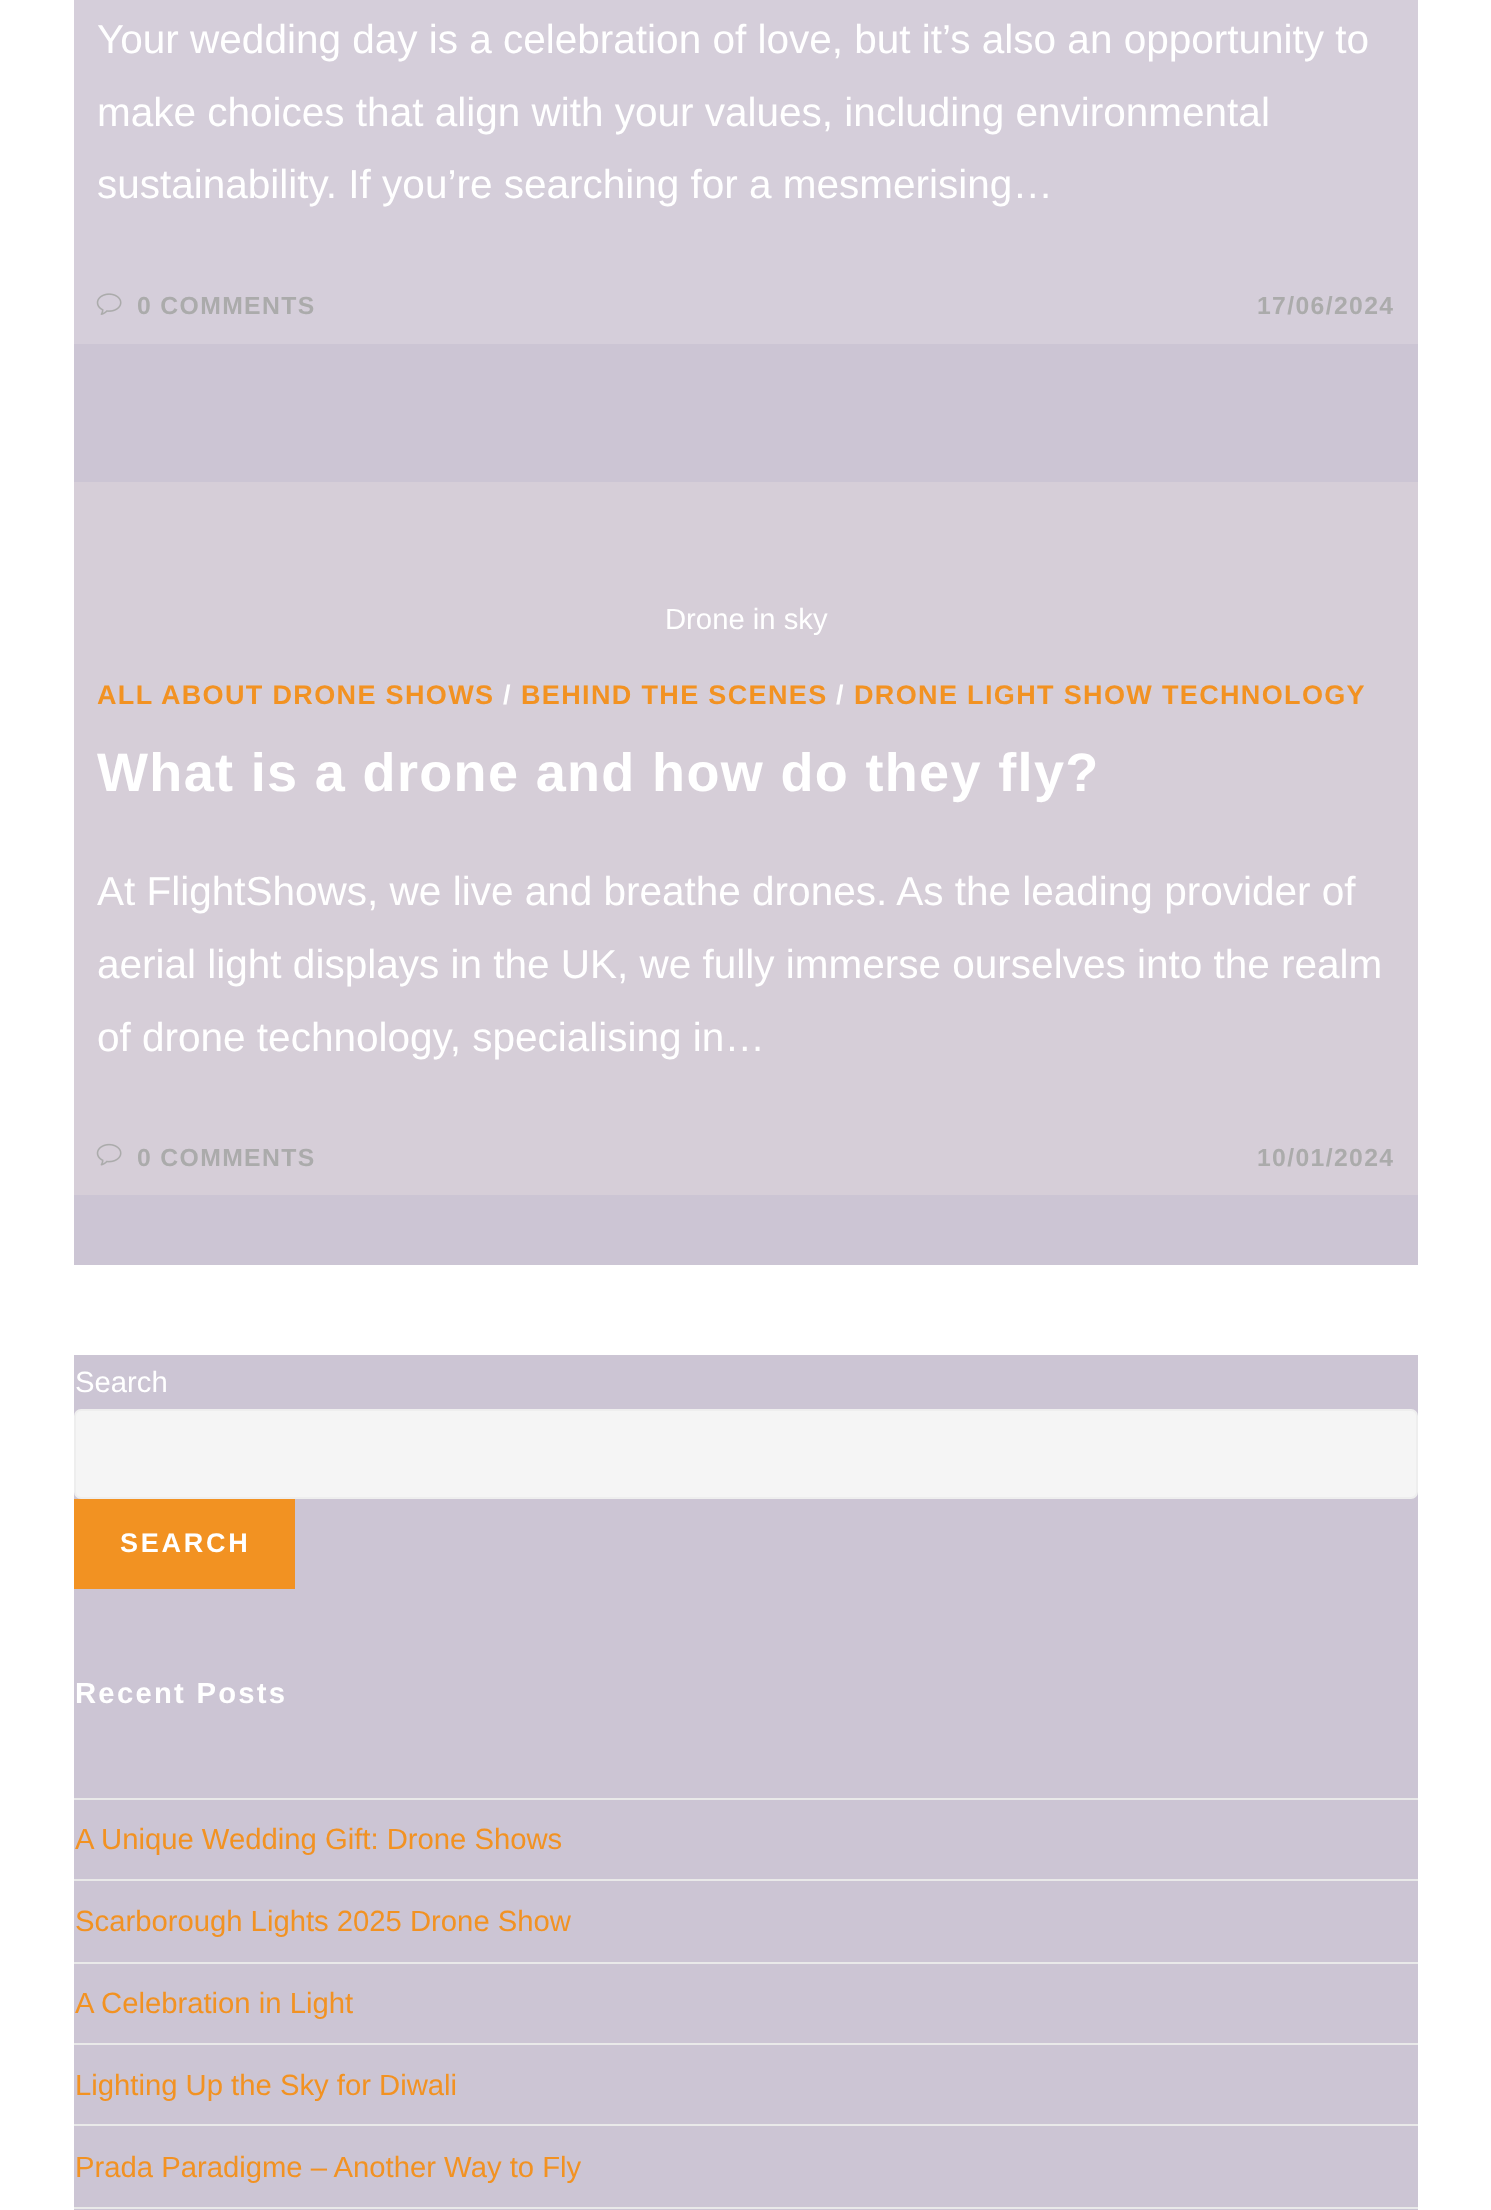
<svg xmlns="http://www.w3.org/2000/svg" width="1491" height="2210">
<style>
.a{font:40.5px Liberation Sans;fill:#fff}
.b{font:bold 24.75px Liberation Sans;letter-spacing:1.35px;fill:#ababab}
.c{font:29.25px Liberation Sans;fill:#fff}
.d{font:bold 27px Liberation Sans;letter-spacing:1.35px;fill:#f29222}
.e{font:bold 27px Liberation Sans;letter-spacing:1.35px;fill:#fff}
.f{font:bold 54px Liberation Sans;letter-spacing:1.35px;fill:#fff}
.g{font:bold 27px Liberation Sans;letter-spacing:2.75px;fill:#fff}
.h{font:bold 29.25px Liberation Sans;letter-spacing:2.25px;fill:#fff}
.i{font:29.25px Liberation Sans;fill:#f29222}
</style>
<rect width="100%" height="100%" fill="#fff"/>
<path fill="#ccc5d4" d="M74 344h1344v921H74z"/>
<path fill="#d5ceda" d="M74 0h1344v344H74z"/>
<image href="1.png" x="96" y="293" width="26" height="22"/>
<path fill="#d6ced8" d="M74 482h1344v713H74z"/>
<image href="2.png" x="96" y="1143" width="26" height="23"/>
<path fill="#ccc5d4" d="M74 1355h1344v855H74z"/>
<rect fill="#f5f5f5" stroke="#eee" stroke-width="2" x="75" y="1410" width="1342" height="88" rx="6"/>
<path fill="#f29222" d="M74 1499h221v90H74z"/>
<path fill="#e9e9e9" d="M74 1798h1344v2H74z"/>
<path fill="#e9e9e9" d="M74 1879h1344v2H74z"/>
<path fill="#e9e9e9" d="M74 1962h1344v2H74z"/>
<path fill="#e9e9e9" d="M74 2043h1344v2H74z"/>
<path fill="#e9e9e9" d="M74 2124h1344v2H74z"/>
<path fill="#e9e9e9" d="M74 2207h1344v2H74z"/>
<text class="a" x="97" y="53">Your wedding day is a celebration of love, but it’s also an opportunity to</text>
<text class="a" x="97" y="126">make choices that align with your values, including environmental</text>
<text class="a" x="97" y="198">sustainability. If you’re searching for a mesmerising…</text>
<text class="b" x="137" y="314">0 COMMENTS</text>
<text class="b" x="1257" y="314">17/06/2024</text>
<text class="c" x="665" y="629">Drone in sky</text>
<text class="d" x="97" y="704">ALL ABOUT DRONE SHOWS</text>
<text class="e" x="503" y="704">/</text>
<text class="d" x="521" y="704">BEHIND THE SCENES</text>
<text class="e" x="836" y="704">/</text>
<text class="d" x="854" y="704">DRONE LIGHT SHOW TECHNOLOGY</text>
<text class="f" x="97" y="791">What is a drone and how do they fly?</text>
<text class="a" x="97" y="905">At FlightShows, we live and breathe drones. As the leading provider of</text>
<text class="a" x="97" y="978">aerial light displays in the UK, we fully immerse ourselves into the realm</text>
<text class="a" x="97" y="1051">of drone technology, specialising in…</text>
<text class="b" x="137" y="1166">0 COMMENTS</text>
<text class="b" x="1257" y="1166">10/01/2024</text>
<text class="c" x="75" y="1392">Search</text>
<text class="g" x="120" y="1552">SEARCH</text>
<text class="h" x="75" y="1703">Recent Posts</text>
<text class="i" x="75" y="1849">A Unique Wedding Gift: Drone Shows</text>
<text class="i" x="75" y="1931">Scarborough Lights 2025 Drone Show</text>
<text class="i" x="75" y="2013">A Celebration in Light</text>
<text class="i" x="75" y="2095">Lighting Up the Sky for Diwali</text>
<text class="i" x="75" y="2177">Prada Paradigme – Another Way to Fly</text>
</svg>
